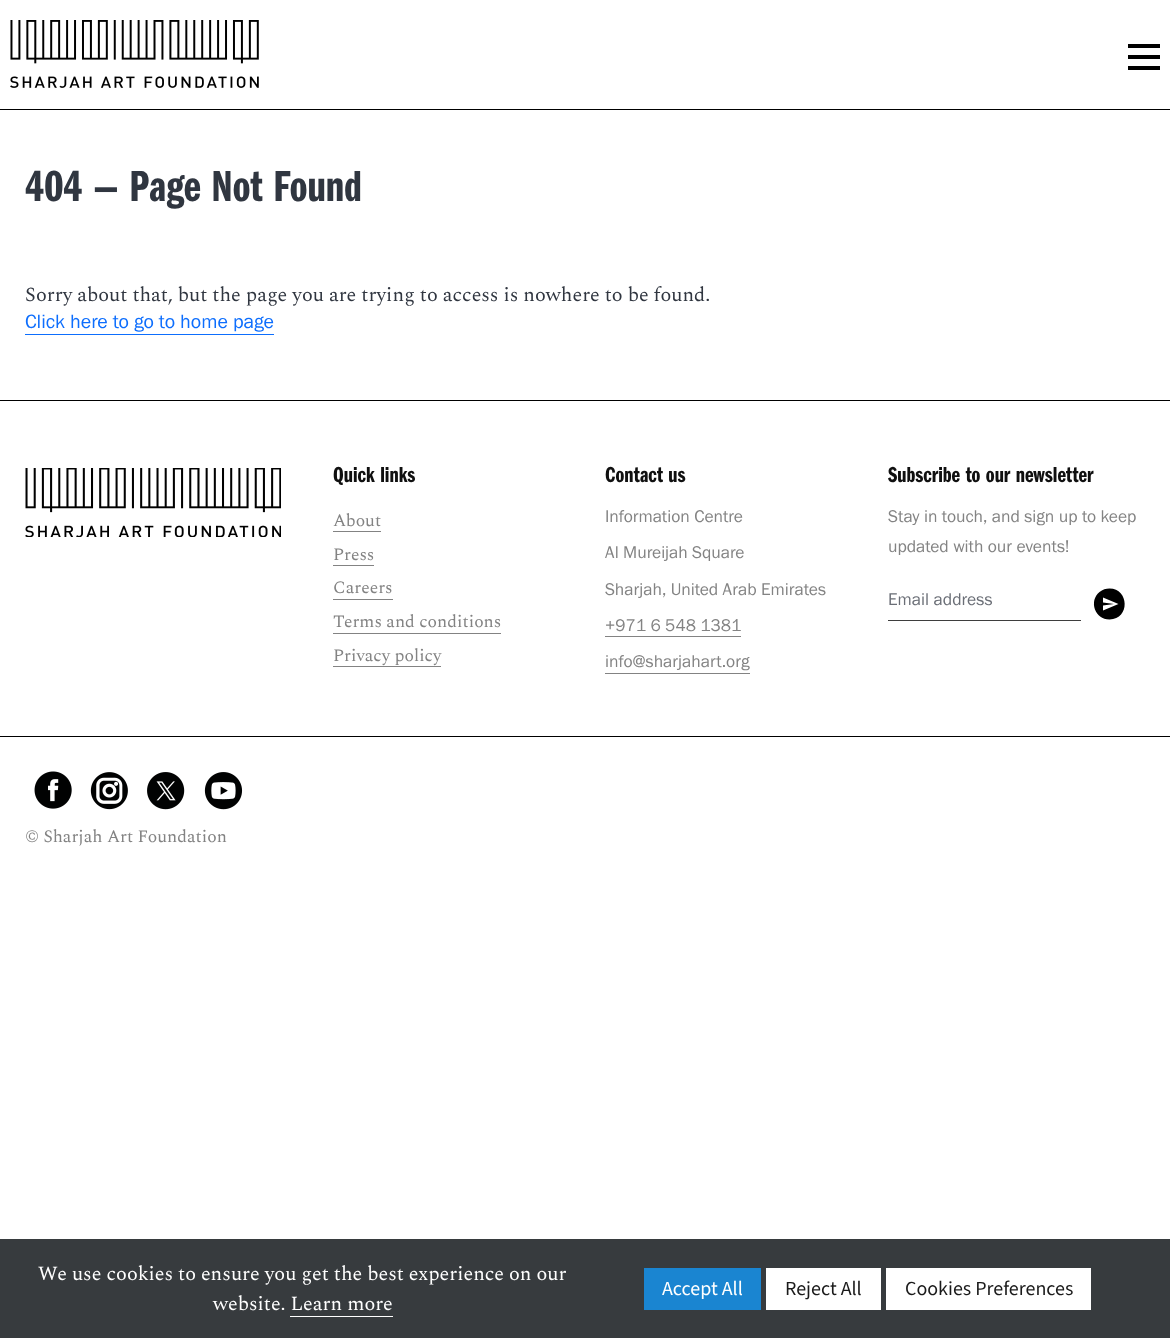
<svg xmlns="http://www.w3.org/2000/svg" width="1170" height="1338">
<style>
.a{font:600 45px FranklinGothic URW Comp;fill:#303640}
.b{font:20px Spectral;fill:#303640}
.c{font:20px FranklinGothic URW;fill:#0d6efd}
.d{font:600 22.5px FranklinGothic URW Comp;fill:#101010}
.e{font:17.5px Spectral;fill:#838383}
.f{font:17.5px FranklinGothic URW;fill:#838383}
.g{font:17.5px FranklinGothic URW;fill:#6a6e76}
.h{font:20px Spectral;fill:#fff}
.i{font:200 20px 'Source Sans 3';fill:#fff}
.j{font:200 20px 'Source Sans 3';fill:#1a1a1a}
</style>
<rect width="100%" height="100%" fill="#fff"/>
<path fill="#000" d="M0 109h1170v1H0z"/>
<image href="1.png" x="10" y="20" width="249" height="68"/>
<path fill="#000" d="M1128 44h32v4H1128z"/>
<path fill="#000" d="M1128 55h32v4H1128z"/>
<path fill="#000" d="M1128 66h32v4H1128z"/>
<path fill="#0d6efd" d="M25 334h249v1H25z"/>
<path fill="#000" d="M0 400h1170v1H0z"/>
<image href="2.png" x="25" y="468" width="256" height="69"/>
<path fill="#838383" d="M333 531h48v1H333z"/>
<path fill="#838383" d="M333 565h41v1H333z"/>
<path fill="#838383" d="M333 599h60v1H333z"/>
<path fill="#838383" d="M333 633h168v1H333z"/>
<path fill="#838383" d="M333 666h108v1H333z"/>
<path fill="#838383" d="M605 636h136v1H605z"/>
<path fill="#838383" d="M605 673h145v1H605z"/>
<path fill="#3e3e3e" d="M888 620h193v1H888z"/>
<path fill="#000" d="M1109.5 588.5c19.5 0 21 30.5 0 31c-14.5 0-21-18.5-10-27.5c3-2.5 6.5-3.5 10-3.5zm-6.5 9v5l11 1.5l-11 1.5v5l15.5-6.5z"/>
<path fill="#000" d="M0 736h1170v1H0z"/>
<image href="3.png" x="34" y="771" width="38" height="38"/>
<image href="4.png" x="90" y="772" width="38" height="38"/>
<image href="5.png" x="147" y="772" width="38" height="38"/>
<image href="6.png" x="204" y="772" width="39" height="38"/>
<path fill="#373b3e" d="M0 1239h1170v99H0z"/>
<path fill="#fff" d="M290 1316h103v1H290z"/>
<path fill="#1a85d1" d="M644 1268h117v42H644z"/>
<path fill="#fff" d="M766 1268h115v42H766z"/>
<path fill="#fff" d="M886 1268h205v42H886z"/>
<text class="a" x="25" y="201">404 — Page Not Found</text>
<text class="b" x="25" y="301">Sorry about that, but the page you are trying to access is nowhere to be found.</text>
<text class="c" x="25" y="328">Click here to go to home page</text>
<text class="d" x="333" y="482">Quick links</text>
<text class="e" x="333" y="526">About</text>
<text class="e" x="333" y="560">Press</text>
<text class="e" x="333" y="593">Careers</text>
<text class="e" x="333" y="627">Terms and conditions</text>
<text class="e" x="333" y="661">Privacy policy</text>
<text class="d" x="605" y="482">Contact us</text>
<text class="f" x="605" y="522">Information Centre</text>
<text class="f" x="605" y="558">Al Mureijah Square</text>
<text class="f" x="605" y="595">Sharjah, United Arab Emirates</text>
<text class="f" x="605" y="631">+971 6 548 1381</text>
<text class="f" x="605" y="667">info@sharjahart.org</text>
<text class="d" x="888" y="482">Subscribe to our newsletter</text>
<text class="f" x="888" y="522">Stay in touch, and sign up to keep</text>
<text class="f" x="888" y="552">updated with our events!</text>
<text class="g" x="888" y="605">Email address</text>
<text class="e" x="25" y="842">© Sharjah Art Foundation</text>
<text class="h" x="38" y="1280">We use cookies to ensure you get the best experience on our</text>
<text class="h" x="213" y="1310">website. Learn more</text>
<text class="i" x="662" y="1295">Accept All</text>
<text class="j" x="785" y="1295">Reject All</text>
<text class="j" x="905" y="1295">Cookies Preferences</text>
</svg>
